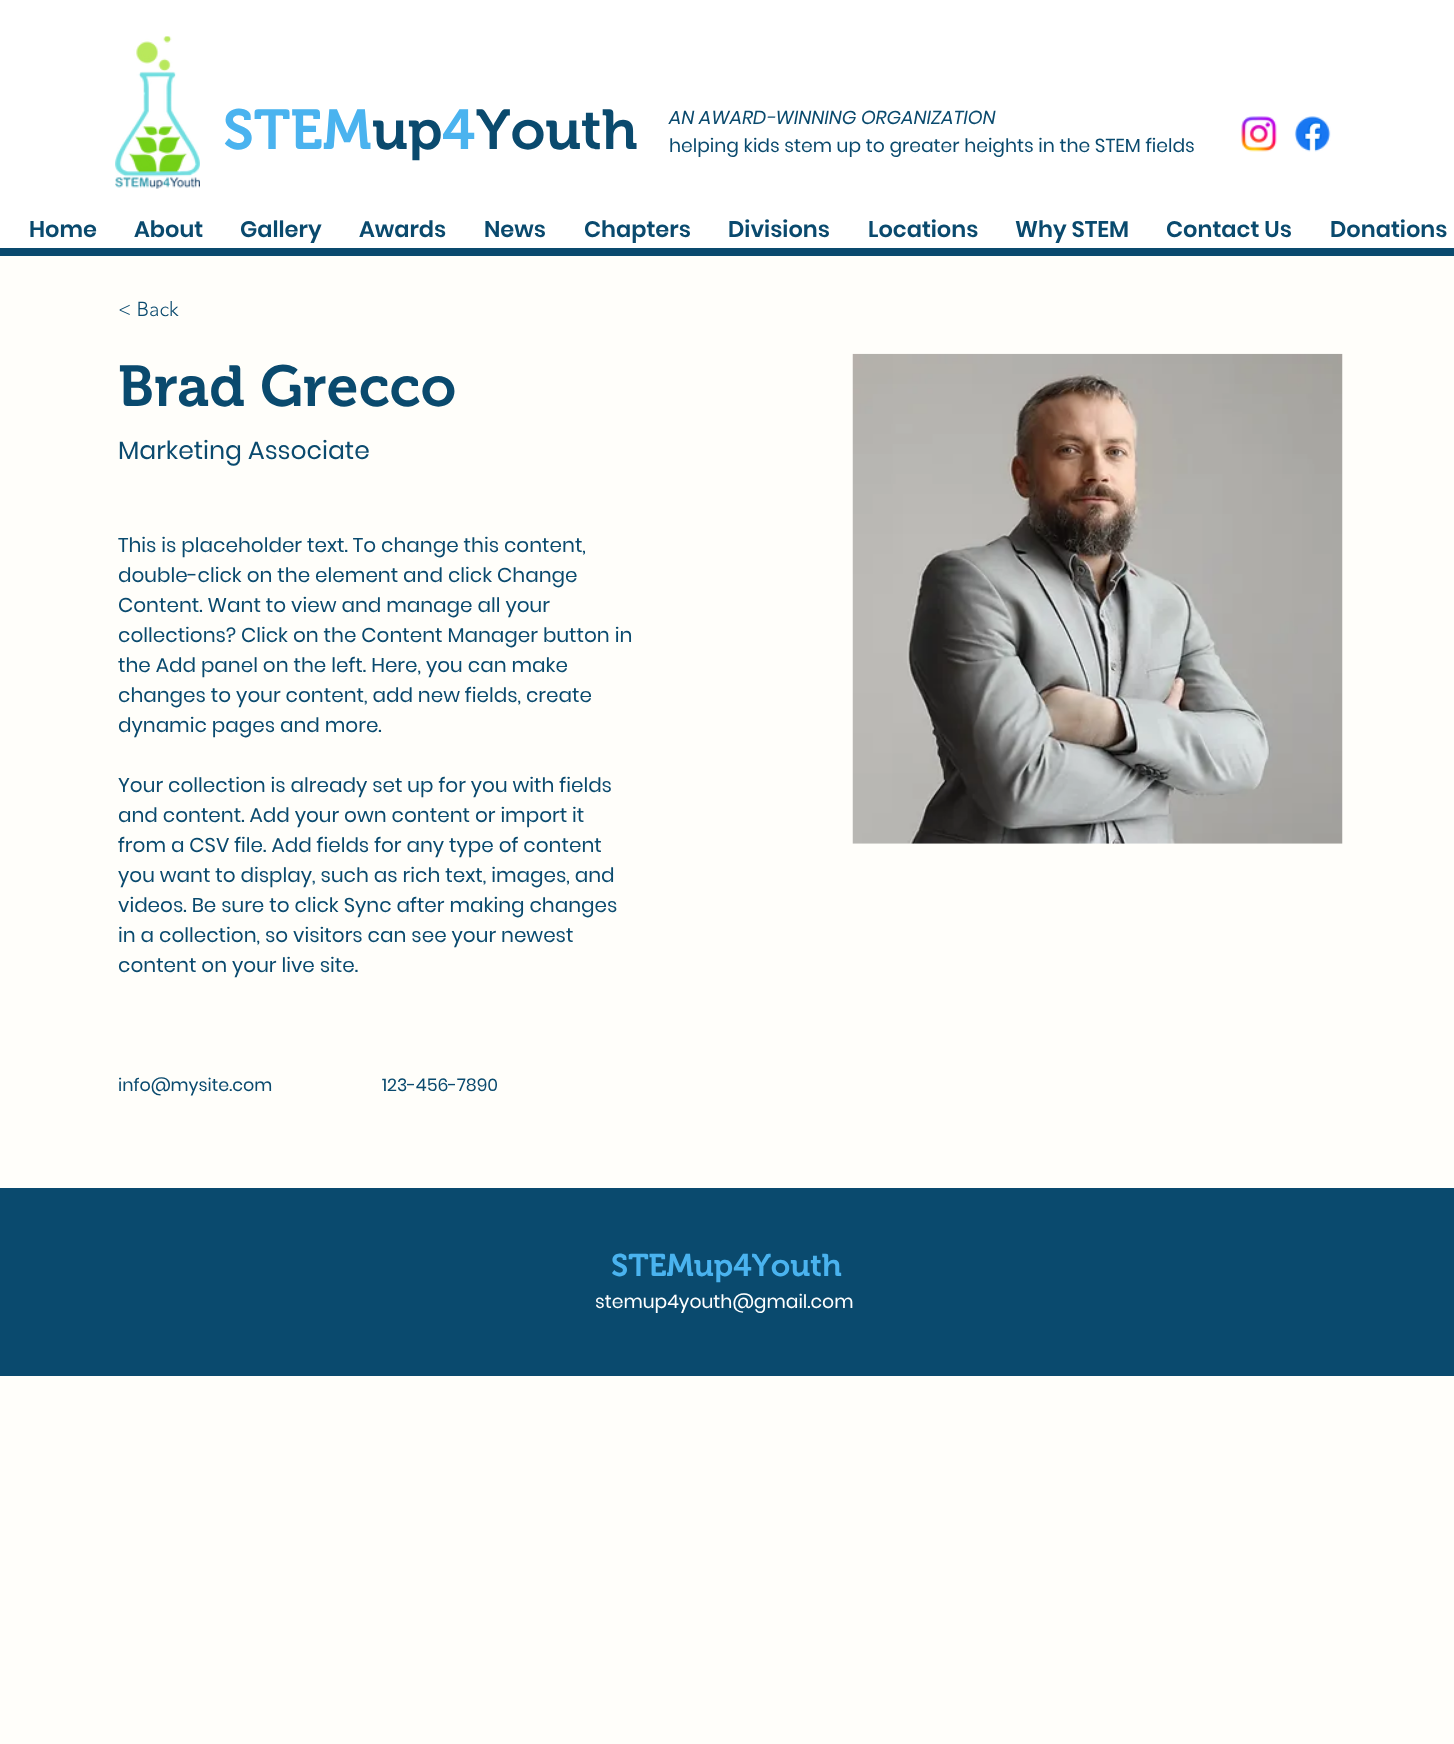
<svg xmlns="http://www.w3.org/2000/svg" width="1454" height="1744">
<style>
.a{font:600 56px 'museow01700';fill:#4ab3ef}
.b{font:600 56px 'museow01700';fill:#0a4a6e}
.c{font:italic 18.75px Poppins;fill:#0a4a6e}
.d{font:18.75px Poppins;fill:#0a4a6e}
.e{font:600 22.5px Poppins;fill:#0a4a6e}
.f{font:300 20px 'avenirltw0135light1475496';fill:#0a4a6e}
.g{font:600 57.5px 'museow01700';fill:#0a4a6e}
.h{font:25px Poppins;fill:#0a4a6e}
.i{font:20px Poppins;fill:#0a4a6e}
.j{font:17.5px Poppins;fill:#0a4a6e}
.k{font:600 31.25px 'museow01700';fill:#4ab3ef}
.l{font:18.75px Poppins;fill:#fff}
</style>
<rect width="100%" height="100%" fill="#fffefa"/>
<path fill="#fff" d="M0 0h1454v248H0z"/>
<image href="1.png" x="115" y="36" width="85" height="153"/>
<image href="2.png" x="1241" y="116" width="36" height="36"/>
<image href="3.png" x="1294" y="116" width="37" height="36"/>
<path fill="#0a4a6e" d="M0 248h1454v8H0z"/>
<image href="4.png" x="852" y="353" width="491" height="491"/>
<path fill="#0a4a6e" d="M0 1188h1454v188H0z"/>
<text class="a" x="223" y="149">STEM</text>
<text class="b" x="372" y="149">up</text>
<text class="a" x="442" y="149">4</text>
<text class="b" x="476" y="149">Youth</text>
<text class="c" x="669" y="124">AN AWARD-WINNING ORGANIZATION</text>
<text class="d" x="669" y="152">helping kids stem up to greater heights in the STEM fields</text>
<text class="e" x="29" y="237">Home</text>
<text class="e" x="134" y="237">About</text>
<text class="e" x="240" y="237">Gallery</text>
<text class="e" x="359" y="237">Awards</text>
<text class="e" x="484" y="237">News</text>
<text class="e" x="584" y="237">Chapters</text>
<text class="e" x="728" y="237">Divisions</text>
<text class="e" x="868" y="237">Locations</text>
<text class="e" x="1015" y="237">Why STEM</text>
<text class="e" x="1166" y="237">Contact Us</text>
<text class="e" x="1330" y="237">Donations</text>
<text class="f" x="118" y="316">&lt; Back</text>
<text class="g" x="118" y="406">Brad Grecco</text>
<text class="h" x="118" y="459">Marketing Associate</text>
<text class="i" x="118" y="552">This is placeholder text. To change this content,</text>
<text class="i" x="118" y="582">double-click on the element and click Change</text>
<text class="i" x="118" y="612">Content. Want to view and manage all your</text>
<text class="i" x="118" y="642">collections? Click on the Content Manager button in</text>
<text class="i" x="118" y="672">the Add panel on the left. Here, you can make</text>
<text class="i" x="118" y="702">changes to your content, add new fields, create</text>
<text class="i" x="118" y="732">dynamic pages and more.</text>
<text class="i" x="118" y="792">Your collection is already set up for you with fields</text>
<text class="i" x="118" y="822">and content. Add your own content or import it</text>
<text class="i" x="118" y="852">from a CSV file. Add fields for any type of content</text>
<text class="i" x="118" y="882">you want to display, such as rich text, images, and</text>
<text class="i" x="118" y="912">videos. Be sure to click Sync after making changes</text>
<text class="i" x="118" y="942">in a collection, so visitors can see your newest</text>
<text class="i" x="118" y="972">content on your live site.</text>
<text class="j" x="118" y="1091">info@mysite.com</text>
<text class="j" x="382" y="1091">123-456-7890</text>
<text class="k" x="611" y="1276">STEMup4Youth</text>
<text class="l" x="595" y="1308">stemup4youth@gmail.com</text>
</svg>
